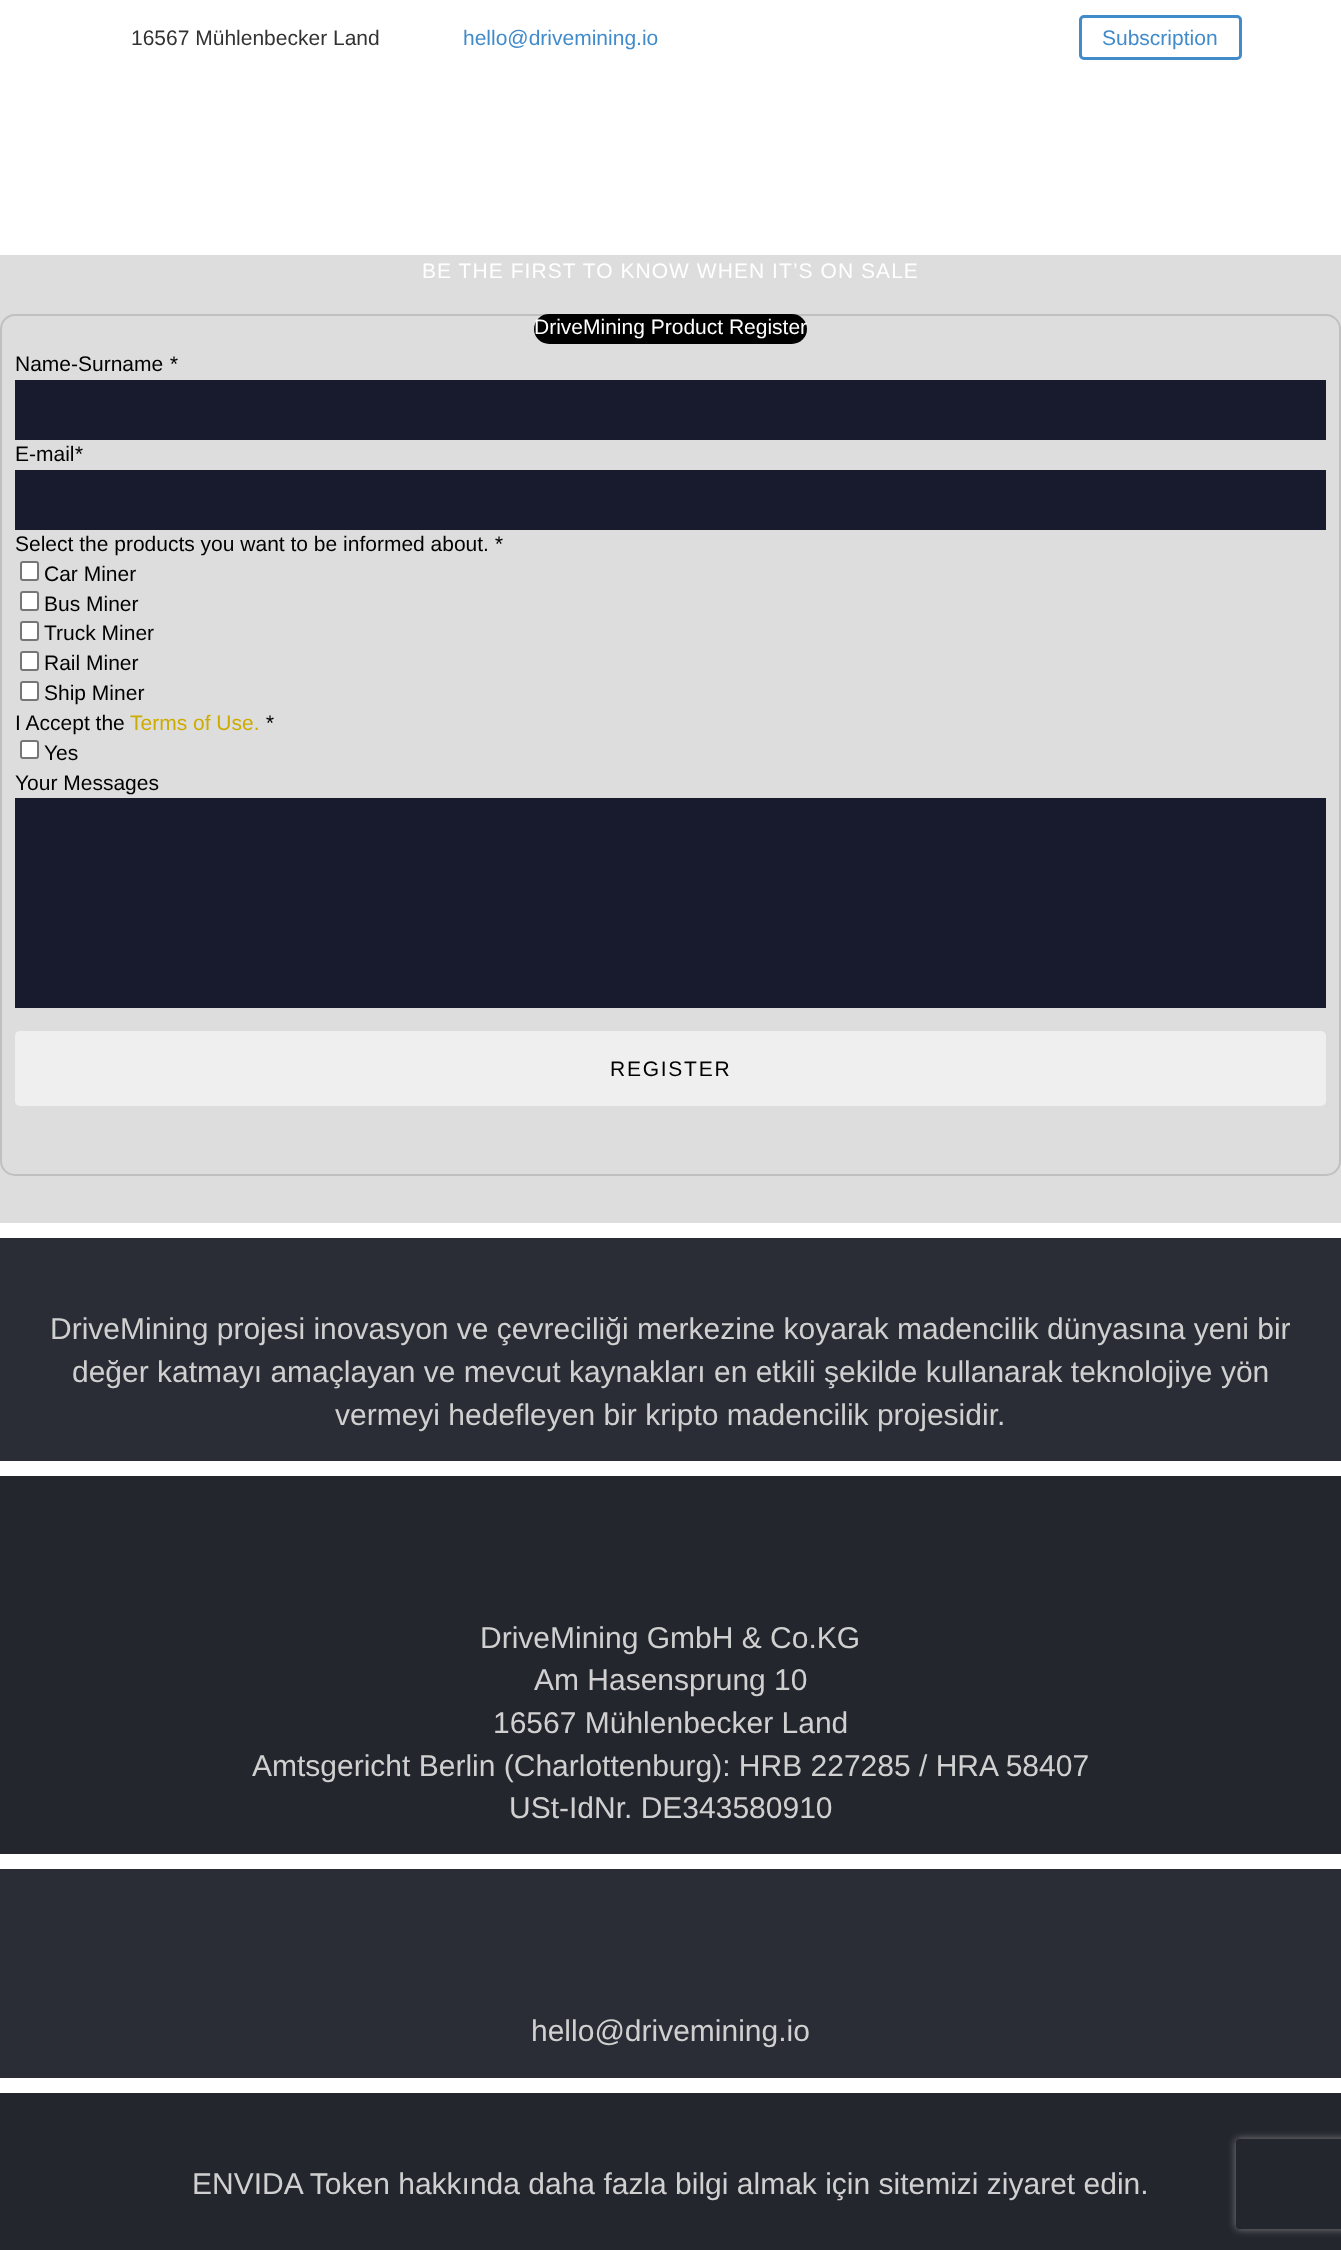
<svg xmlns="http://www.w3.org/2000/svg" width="1341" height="2250">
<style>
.a{font:21px Liberation Sans;fill:#333}
.b{font:21px Liberation Sans;fill:#428bca}
.c{font:21px Liberation Sans;letter-spacing:1.05px;fill:#fff}
.d{font:21px Liberation Sans;fill:#fff}
.e{font:21px Liberation Sans;fill:#000}
.f{font:italic 21px Liberation Sans;fill:#000}
.g{font:21px Liberation Sans;fill:#ccac00}
.h{font:21px Liberation Sans;letter-spacing:1.75px;fill:#000}
.i{font:30px Liberation Sans;fill:#d0d0d0}
</style>
<defs>
<clipPath id="clip1"><path d="M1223 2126h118v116h-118zm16 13h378c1.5 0 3 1.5 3 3v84c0 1.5-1.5 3-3 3h-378c-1.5 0-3-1.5-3-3v-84c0-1.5 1.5-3 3-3z" clip-rule="evenodd"/></clipPath>
</defs>
<rect width="100%" height="100%" fill="#fff"/>
<rect fill="none" stroke="#428bca" stroke-width="3" x="1080.5" y="16.5" width="160" height="42" rx="3.5"/>
<path fill="#ddd" d="M0 255h1341v968H0z"/>
<rect fill="none" stroke="#c0c0c0" stroke-width="2" x="1" y="315" width="1339" height="860" rx="14"/>
<rect fill="#000" x="534" y="314" width="273" height="30" rx="15"/>
<path fill="#171b2d" d="M15 380h1311v60H15z"/>
<path fill="#171b2d" d="M15 470h1311v60H15z"/>
<rect fill="#fff" stroke="#767676" stroke-width="2" x="21" y="562" width="17" height="18" rx="2"/>
<rect fill="#fff" stroke="#767676" stroke-width="2" x="21" y="592" width="17" height="18" rx="2"/>
<rect fill="#fff" stroke="#767676" stroke-width="2" x="21" y="622" width="17" height="18" rx="2"/>
<rect fill="#fff" stroke="#767676" stroke-width="2" x="21" y="652" width="17" height="18" rx="2"/>
<rect fill="#fff" stroke="#767676" stroke-width="2" x="21" y="682" width="17" height="18" rx="2"/>
<rect fill="#fff" stroke="#767676" stroke-width="2" x="21" y="741" width="17" height="17" rx="2"/>
<path fill="#171b2d" d="M15 798h1311v210H15z"/>
<rect fill="#efefef" x="15" y="1031" width="1311" height="75" rx="5"/>
<path fill="#2b2d36" d="M0 1238h1341v223H0z"/>
<path fill="#24262e" d="M0 1476h1341v378H0z"/>
<path fill="#2b2d36" d="M0 1869h1341v209H0z"/>
<path fill="#24262e" d="M0 2093h1341v157H0z"/>
<g clip-path="url(#clip1)">
<rect fill="#808080" filter="blur(4px)" x="1236" y="2139" width="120" height="90" rx="3"/>
</g>
<text class="a" x="131" y="45">16567 Mühlenbecker Land</text>
<text class="b" x="463" y="45">hello@drivemining.io</text>
<text class="b" x="1102" y="45">Subscription</text>
<text class="c" x="422" y="278">BE THE FIRST TO KNOW WHEN IT’S ON SALE</text>
<text class="d" x="534" y="334">DriveMining Product Register</text>
<text class="e" x="15" y="371">Name-Surname</text>
<text class="f" x="169" y="371">*</text>
<text class="e" x="15" y="461">E-mail</text>
<text class="f" x="74" y="461">*</text>
<text class="e" x="15" y="551">Select the products you want to be informed about.</text>
<text class="f" x="494" y="551">*</text>
<text class="e" x="44" y="581">Car Miner</text>
<text class="e" x="44" y="611">Bus Miner</text>
<text class="e" x="44" y="640">Truck Miner</text>
<text class="e" x="44" y="670">Rail Miner</text>
<text class="e" x="44" y="700">Ship Miner</text>
<text class="e" x="15" y="730">I Accept the</text>
<text class="g" x="130" y="730">Terms of Use.</text>
<text class="f" x="265" y="730">*</text>
<text class="e" x="44" y="760">Yes</text>
<text class="e" x="15" y="790">Your Messages</text>
<text class="h" x="610" y="1076">REGISTER</text>
<text class="i" x="50" y="1339">DriveMining projesi inovasyon ve çevreciliği merkezine koyarak madencilik dünyasına yeni bir</text>
<text class="i" x="72" y="1382">değer katmayı amaçlayan ve mevcut kaynakları en etkili şekilde kullanarak teknolojiye yön</text>
<text class="i" x="335" y="1425">vermeyi hedefleyen bir kripto madencilik projesidir.</text>
<text class="i" x="480" y="1648">DriveMining GmbH &amp; Co.KG</text>
<text class="i" x="534" y="1690">Am Hasensprung 10</text>
<text class="i" x="493" y="1733">16567 Mühlenbecker Land</text>
<text class="i" x="252" y="1776">Amtsgericht Berlin (Charlottenburg): HRB 227285 / HRA 58407</text>
<text class="i" x="509" y="1818">USt-IdNr. DE343580910</text>
<text class="i" x="531" y="2041">hello@drivemining.io</text>
<text class="i" x="192" y="2194">ENVIDA Token hakkında daha fazla bilgi almak için sitemizi ziyaret edin.</text>
</svg>
